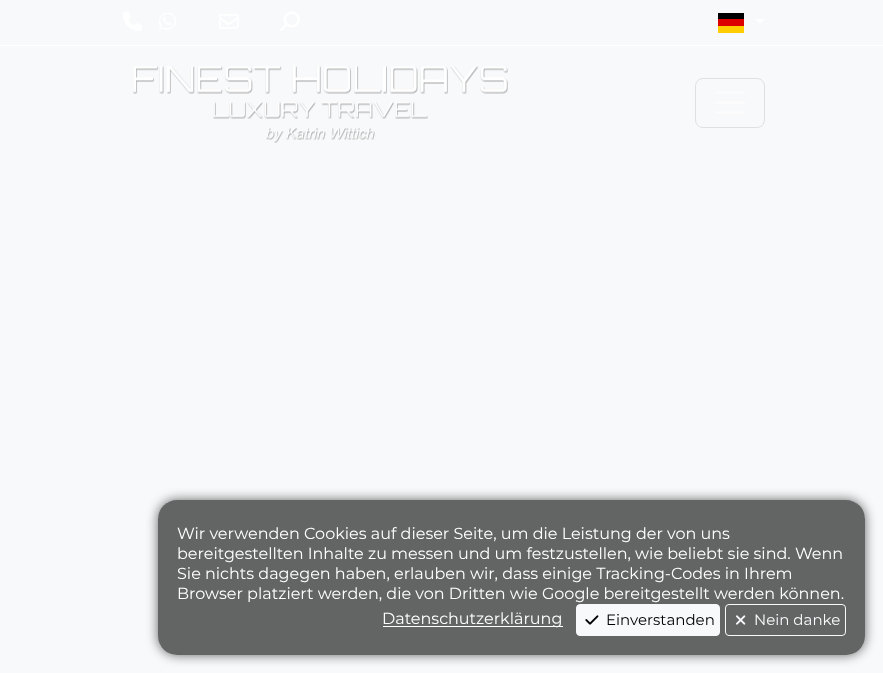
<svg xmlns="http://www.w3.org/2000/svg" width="883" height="673">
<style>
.a{font:16px Montserrat;fill:#fff}
.b{font:15px Montserrat;fill:#000}
.c{font:15px Montserrat;fill:#f8f9fa}
</style>
<defs>
<clipPath id="clip1"><path d="M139 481h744v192h-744zm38 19h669c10.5 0 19 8.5 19 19v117c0 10.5-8.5 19-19 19h-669c-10.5 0-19-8.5-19-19v-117c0-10.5 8.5-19 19-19z" clip-rule="evenodd"/></clipPath>
</defs>
<rect width="100%" height="100%" fill="#f8f9fa"/>
<path fill="#fff" d="M0 45h883v1H0z"/>
<image href="1.png" x="123" y="11" width="19" height="20"/>
<image href="2.png" x="159" y="13" width="17" height="17"/>
<image href="3.png" x="219" y="14" width="20" height="15"/>
<image href="4.png" x="280" y="11" width="20" height="20"/>
<path fill="#ffce00" d="M718 26h26v7H718z"/>
<path fill="#000" d="M718 13h26v6H718z"/>
<path fill="#d00" d="M718 19h26v7H718z"/>
<path fill="#fff" d="M755 19h10l-5 5z"/>
<image href="5.png" x="133" y="66" width="375" height="77"/>
<rect fill="none" stroke="#dfe0e1" x="695.5" y="78.5" width="69" height="49" rx="7.5"/>
<path fill="none" stroke="#fcfcfd" stroke-width="2.5" stroke-linecap="round" d="M716 92.5h28m-28 10h28m-28 10h28"/>
<g clip-path="url(#clip1)">
<rect fill="#00000099" filter="blur(6px)" x="158" y="500" width="707" height="155" rx="19"/>
</g>
<rect fill="#00000099" x="158" y="500" width="707" height="155" rx="19"/>
<path fill="#fff" d="M383 626h180v1H383z"/>
<rect fill="#f8f9fa" stroke="#f8f9fa" x="576.5" y="604.5" width="143" height="31" rx="3.5"/>
<image href="6.png" x="585" y="615" width="14" height="10"/>
<rect fill="none" stroke="#f8f9fa" x="725.5" y="604.5" width="120" height="31" rx="3.5"/>
<image href="7.png" x="736" y="615" width="10" height="10"/>
<text class="a" x="177" y="539">Wir verwenden Cookies auf dieser Seite, um die Leistung der von uns</text>
<text class="a" x="177" y="559">bereitgestellten Inhalte zu messen und um festzustellen, wie beliebt sie sind. Wenn</text>
<text class="a" x="177" y="579">Sie nichts dagegen haben, erlauben wir, dass einige Tracking-Codes in Ihrem</text>
<text class="a" x="177" y="599">Browser platziert werden, die von Dritten wie Google bereitgestellt werden können.</text>
<text class="a" x="382" y="624">Datenschutzerklärung</text>
<text class="b" x="606" y="625">Einverstanden</text>
<text class="c" x="754" y="625">Nein danke</text>
</svg>
